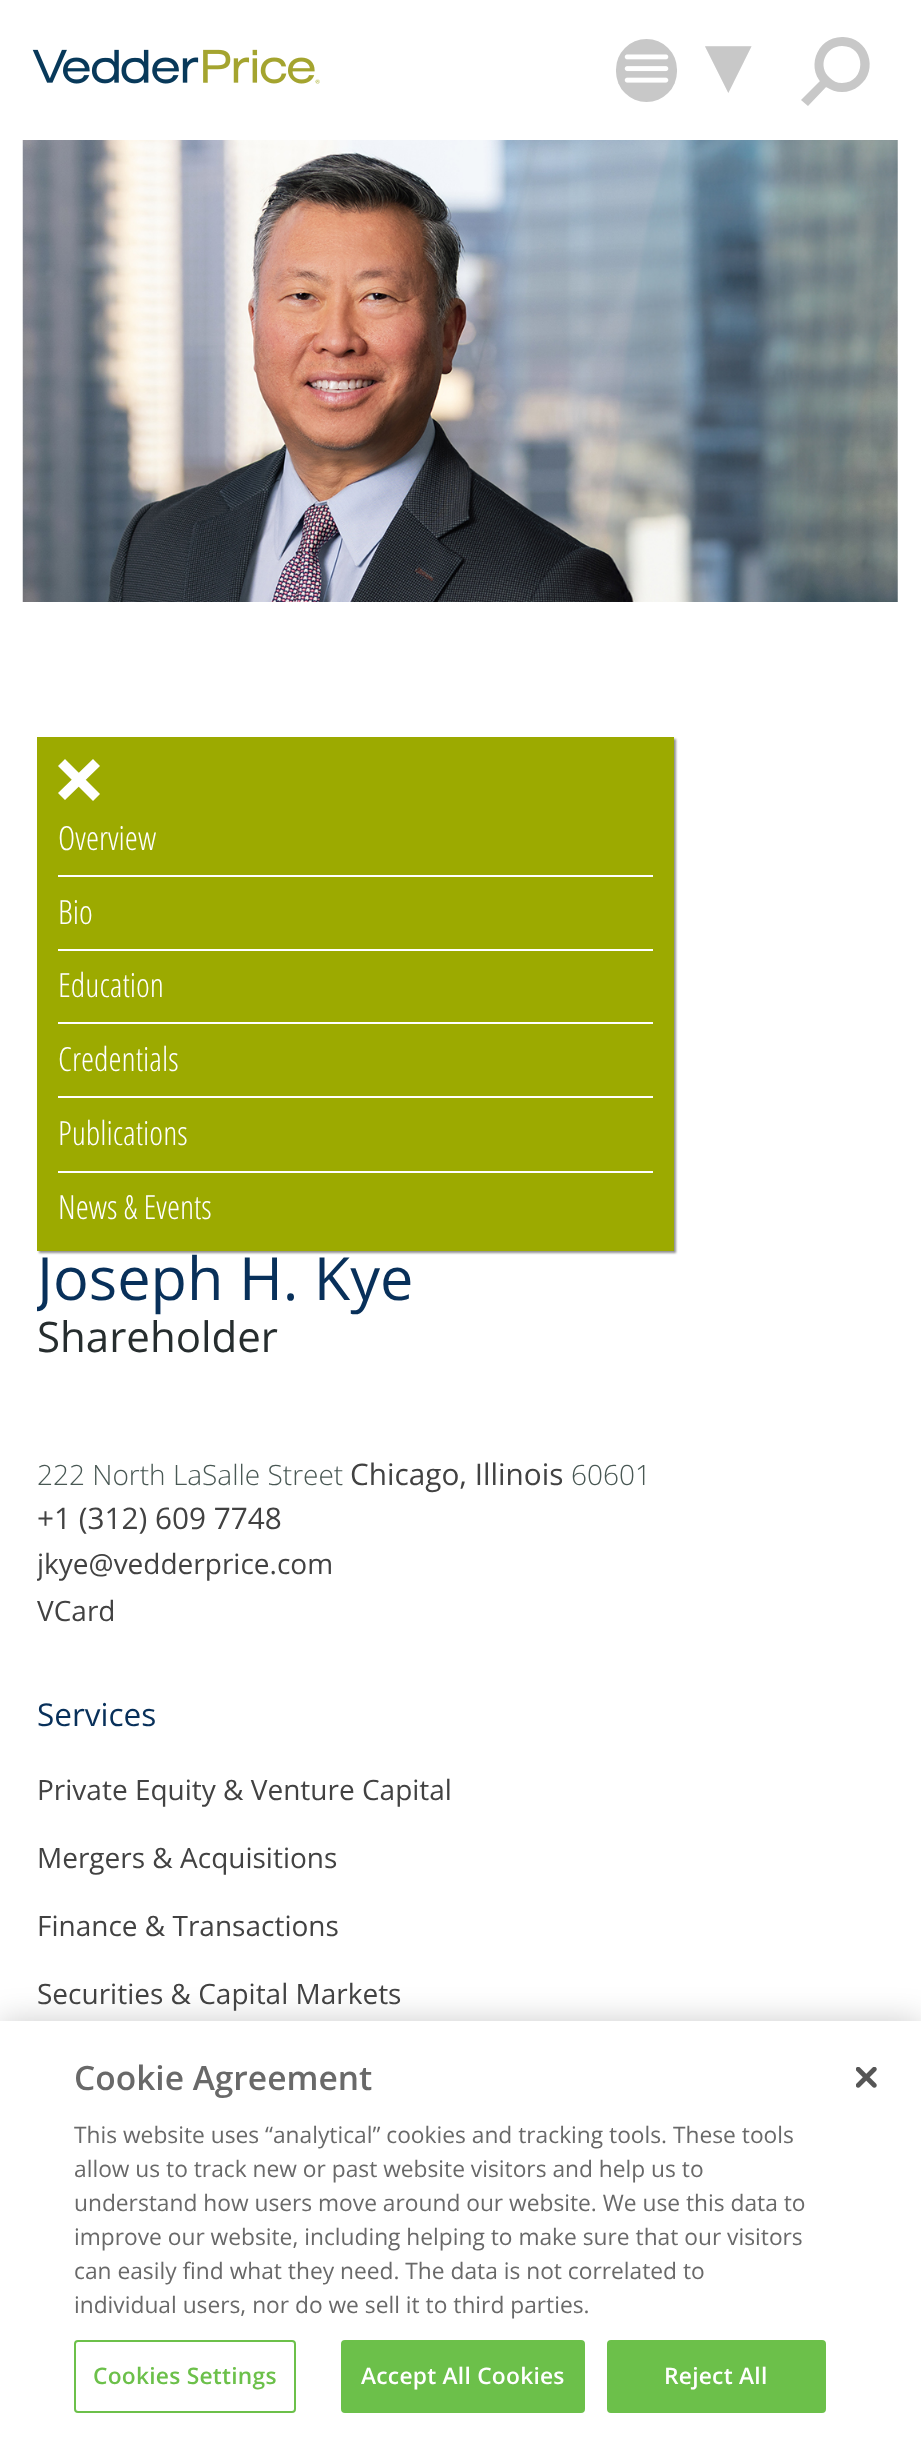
<svg xmlns="http://www.w3.org/2000/svg" width="921" height="2450">
<style>*{font-kerning:none!important;font-variant-ligatures:none!important}</style>
<style>
.a{font:78px Liberation Sans;fill:#c8c8c8}
.b{font:300 33.25px Open Sans Condensed;fill:#fff}
.c{font:59.5px Open Sans;fill:#08305a}
.d{font:42px Open Sans;fill:#262d2e}
.e{font:300 28px Open Sans;fill:#495854}
.f{font:29.75px Open Sans;fill:#424242}
.g{font:28px Open Sans;fill:#424242}
.h{font:31.5px Open Sans;fill:#08305a}
.i{font:600 33.5px Open Sans;fill:#696969}
.j{font:22.75px Open Sans;fill:#696969}
.k{font:600 22.75px Open Sans;letter-spacing:0.25px;fill:#6cc04a}
.l{font:600 22.75px Open Sans;letter-spacing:0.25px;fill:#fff}
</style>
<defs>
<clipPath id="clip1"><path d="M37 1251h660v891H37z"/></clipPath>
</defs>
<rect width="100%" height="100%" fill="#fff"/>
<image href="1.png" x="32" y="49" width="288" height="35"/>
<rect fill="#c8c8c8" x="616" y="39" width="61" height="63" rx="30.5"/>
<image href="2.png" x="624" y="54" width="45" height="29"/>
<path fill="#c8c8c8" d="M842 92c-6 0-11-2-16-5c-22-16-10-50 16-50c26-1 38 33 17 49c-5 4-11 6-17 6zm0-46c-17 0-25 21-12 32c3 3 7 5 12 5c24 0 25-37 0-37zm-41 54l21-21l6 6l-20 21z"/>
<image href="3.png" x="22" y="140" width="876" height="462"/>
<path fill="#909090" filter="blur(1px)" d="M39 739h637v514H39z"/>
<path fill="#9caa00" d="M37 737h637v514H37z"/>
<path fill="#fff" d="M58 766l7-7l35 35l-7 7zm0 27l35-34l7 7l-35 34z"/>
<path fill="#fff" d="M58 875h595v2H58z"/>
<path fill="#fff" d="M58 949h595v2H58z"/>
<path fill="#fff" d="M58 1022h595v2H58z"/>
<path fill="#fff" d="M58 1096h595v2H58z"/>
<path fill="#fff" d="M58 1171h595v2H58z"/>
<path fill="#00000033" filter="blur(16px)" d="M0 2021h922v429H0z"/>
<path fill="#fff" d="M0 2021h921v429H0z"/>
<rect fill="none" stroke="#6cc04a" stroke-width="2" x="75" y="2341" width="220" height="71" rx="3"/>
<rect fill="#6cc04a" stroke="#6cc04a" stroke-width="2" x="342" y="2341" width="242" height="71" rx="3"/>
<rect fill="#6cc04a" stroke="#6cc04a" stroke-width="2" x="608" y="2341" width="217" height="71" rx="3"/>
<image href="4.png" x="856" y="2067" width="21" height="21"/>
<text class="a" x="706" y="31" transform="rotate(90 706 31)">►︎</text>
<text class="b" x="58" y="850">Overview</text>
<text class="b" x="58" y="924">Bio</text>
<text class="b" x="58" y="997">Education</text>
<text class="b" x="58" y="1071">Credentials</text>
<text class="b" x="58" y="1145">Publications</text>
<text class="b" x="58" y="1219">News &amp; Events</text>
<g clip-path="url(#clip1)">
<text class="c" x="37" y="1300">Joseph H. Kye</text>
</g>
<text class="d" x="37" y="1352">Shareholder</text>
<text class="e" x="37" y="1485">222 North LaSalle Street</text>
<text class="f" x="350" y="1485">Chicago, Illinois</text>
<text class="e" x="571" y="1485">60601</text>
<text class="f" x="37" y="1529">+1 (312) 609 7748</text>
<g clip-path="url(#clip1)">
<text class="g" x="37" y="1574">jkye@vedderprice.com</text>
</g>
<text class="g" x="37" y="1621">VCard</text>
<text class="h" x="37" y="1726">Services</text>
<text class="g" x="37" y="1800">Private Equity &amp; Venture Capital</text>
<text class="g" x="37" y="1868">Mergers &amp; Acquisitions</text>
<text class="g" x="37" y="1936">Finance &amp; Transactions</text>
<text class="g" x="37" y="2004">Securities &amp; Capital Markets</text>
<text class="i" x="74" y="2090">Cookie Agreement</text>
<text class="j" x="74" y="2143">This website uses “analytical” cookies and tracking tools. These tools</text>
<text class="j" x="74" y="2177">allow us to track new or past website visitors and help us to</text>
<text class="j" x="74" y="2211">understand how users move around our website. We use this data to</text>
<text class="j" x="74" y="2245">improve our website, including helping to make sure that our visitors</text>
<text class="j" x="74" y="2279">can easily find what they need. The data is not correlated to</text>
<text class="j" x="74" y="2313">individual users, nor do we sell it to third parties.</text>
<text class="k" x="93" y="2384">Cookies Settings</text>
<text class="l" x="361" y="2384">Accept All Cookies</text>
<text class="l" x="664" y="2384">Reject All</text>
</svg>
